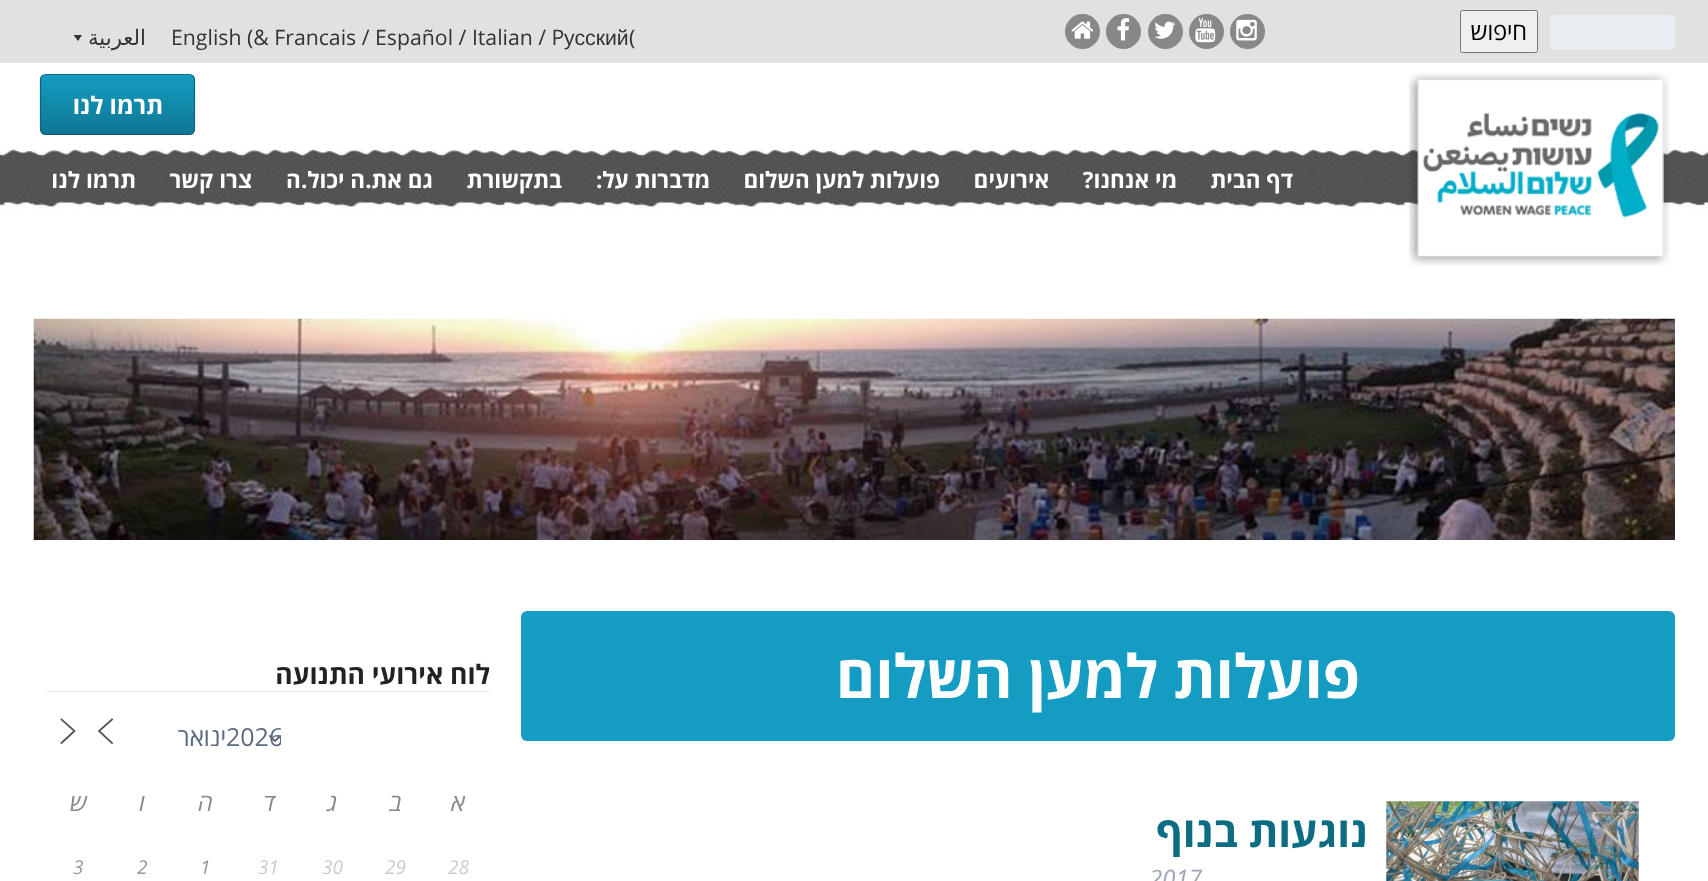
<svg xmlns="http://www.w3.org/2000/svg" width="1708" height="881">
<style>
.a{font:24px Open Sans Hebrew;direction:rtl;fill:#000}
.b{font:21.25px Open Sans Hebrew;fill:#333}
.c{font:21.25px Liberation Sans;fill:#333}
.d{font:21.25px DejaVu Sans;direction:rtl;fill:#333}
.e{font:bold 24px Open Sans Hebrew;direction:rtl;fill:#fff}
.f{font:bold 22.5px Open Sans Hebrew;direction:rtl;fill:#fff}
.g{font:bold 60px Open Sans Hebrew;direction:rtl;fill:#fff}
.h{font:bold 42px Open Sans Hebrew;direction:rtl;fill:#0c6c81}
.i{font:italic 24px Open Sans Hebrew;fill:#9fa6b4}
.j{font:bold 26.5px Open Sans Hebrew;direction:rtl;fill:#222}
.k{font:25px Open Sans Hebrew;fill:#5c6b80}
.l{font:25px Open Sans Hebrew;direction:rtl;fill:#5c6b80}
.m{font:italic 24px Open Sans Hebrew;direction:rtl;fill:#888}
.n{font:italic 19px Open Sans Hebrew;fill:#ccc}
.o{font:italic 19px Open Sans Hebrew;fill:#999}
</style>
<defs>
<clipPath id="clip1"><rect x="40" y="74" width="155" height="61" rx="6"/></clipPath>
<linearGradient id="g1" gradientUnits="userSpaceOnUse" x1="41" y1="134" x2="41" y2="75"><stop offset="0" stop-color="#0f7794"/><stop offset="1" stop-color="#149cc2"/></linearGradient>
<clipPath id="clip2"><path d="M123 720h158v34H123z"/></clipPath>
</defs>
<rect width="100%" height="100%" fill="#fff"/>
<path fill="#e1e1df" d="M0 0h1708v63H0z"/>
<rect fill="#eaedf2" x="1550" y="15" width="125" height="35" rx="4"/>
<rect fill="#efefef" stroke="#767676" x="1460.5" y="10.5" width="77" height="42" rx="2"/>
<circle fill="#888" cx="1247.5" cy="31.5" r="17.5"/>
<image href="1.png" x="1236" y="19" width="21" height="22"/>
<circle fill="#888" cx="1206.5" cy="31.5" r="17.5"/>
<image href="2.png" x="1195" y="18" width="21" height="25"/>
<circle fill="#888" cx="1165.5" cy="31.5" r="17.5"/>
<image href="3.png" x="1154" y="21" width="22" height="18"/>
<circle fill="#888" cx="1123.5" cy="31.5" r="17.5"/>
<image href="4.png" x="1117" y="18" width="13" height="23"/>
<circle fill="#888" cx="1082.5" cy="31.5" r="17.5"/>
<image href="5.png" x="1071" y="21" width="23" height="18"/>
<path fill="#333" d="M82 35l-4 6l-4.5-6z"/>
<image href="6.png" x="0" y="149" width="1708" height="61"/>
<image href="7.png" x="1409" y="72" width="261" height="194"/>
<g clip-path="url(#clip1)">
<path fill="url(#g1)" d="M40 75h155v59H40z"/>
</g>
<path fill="none" stroke="#0e6c86" stroke-width="1.2" d="M42 76c1-1 2.5-1.5 4-1.5h143c1.5 0 3 .5 4 1.5"/>
<path fill="none" stroke="#0d647d" stroke-width="1.2" d="M193 76c1 1 1.5 2.5 1.5 4v49c0 1.5-.5 3-1.5 4"/>
<path fill="none" stroke="#0b596f" stroke-width="1.2" d="M193 133c-1 1-2.5 1.5-4 1.5h-143c-1.5 0-3-.5-4-1.5"/>
<path fill="none" stroke="#0d647d" stroke-width="1.2" d="M42 133c-1-1-1.5-2.5-1.5-4v-49c0-1.5 .5-3 1.5-4"/>
<image href="8.png" x="33" y="318" width="1642" height="222"/>
<rect fill="#149cc2" x="521" y="611" width="1154" height="130" rx="6"/>
<image href="9.png" x="1386" y="801" width="253" height="80"/>
<path fill="#ececec" d="M46 691h444v1H46z"/>
<path fill="none" stroke="#555" stroke-width="1.7" stroke-linecap="square" d="M270 736l5 5l5-5"/>
<path fill="none" stroke="#555" stroke-width="1.8" stroke-linecap="square" d="M112 743l-13-12l13-11.5m-50.5 23.5l13-12l-13-11.5"/>
<text class="a" x="1527" y="40">חיפוש</text>
<text class="b" x="629" y="45">(</text>
<text class="c" x="564" y="45">усский</text>
<text class="b" x="171" y="45">English (&amp; Francais / Español / Italian / P</text>
<text class="d" x="146" y="45">العربية</text>
<text class="e" x="163" y="114">תרמו לנו</text>
<text class="f" x="1293" y="188">דף הבית</text>
<text class="f" x="1177" y="188">מי אנחנו?</text>
<text class="f" x="1049" y="188">אירועים</text>
<text class="f" x="940" y="188">פועלות למען השלום</text>
<text class="f" x="710" y="188">מדברות על:</text>
<text class="f" x="562" y="188">בתקשורת</text>
<text class="f" x="433" y="188">גם את.ה יכול.ה</text>
<text class="f" x="252" y="188">צרו קשר</text>
<text class="f" x="136" y="188">תרמו לנו</text>
<text class="g" x="1360" y="698">פועלות למען השלום</text>
<text class="h" x="1368" y="847">נוגעות בנוף</text>
<text class="i" x="1149" y="887">2017</text>
<text class="j" x="490" y="684">לוח אירועי התנועה</text>
<g clip-path="url(#clip2)">
<text class="k" x="226" y="746">2026</text>
</g>
<text class="l" x="226" y="746">ינואר</text>
<text class="m" x="465" y="811">א</text>
<text class="m" x="402" y="811">ב</text>
<text class="m" x="337" y="811">ג</text>
<text class="m" x="275" y="811">ד</text>
<text class="m" x="213" y="811">ה</text>
<text class="m" x="145" y="811">ו</text>
<text class="m" x="87" y="811">ש</text>
<text class="n" x="448" y="874">28</text>
<text class="n" x="385" y="874">29</text>
<text class="n" x="322" y="874">30</text>
<text class="n" x="258" y="874">31</text>
<text class="o" x="200" y="874">1</text>
<text class="o" x="137" y="874">2</text>
<text class="o" x="73" y="874">3</text>
</svg>
